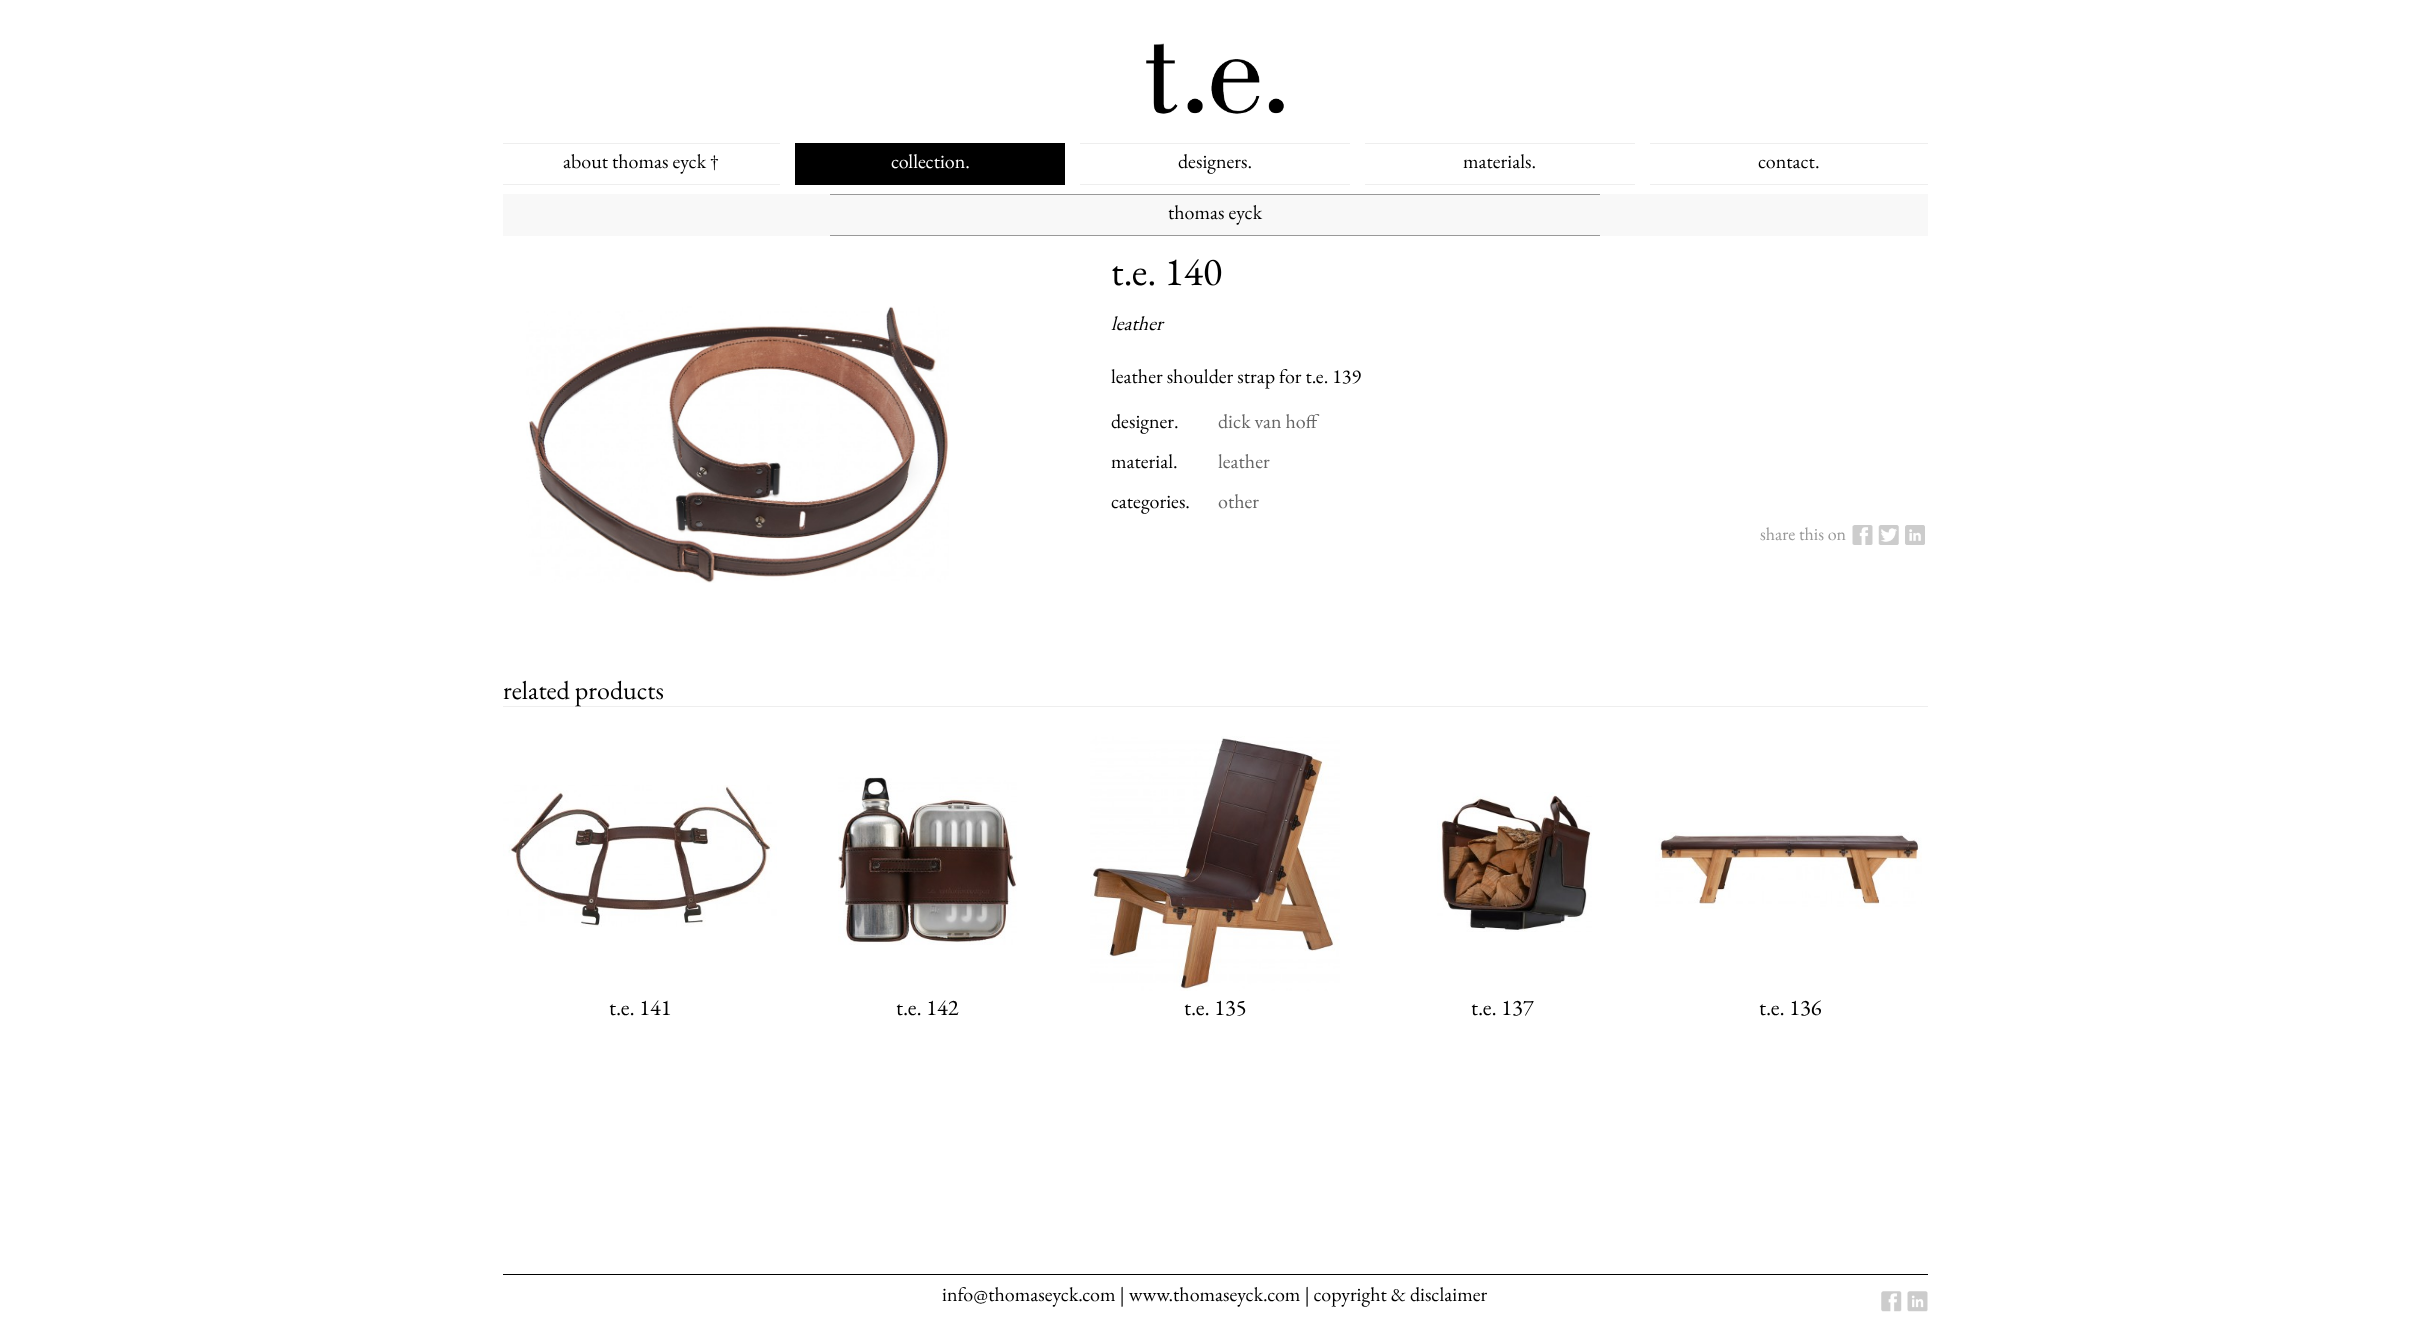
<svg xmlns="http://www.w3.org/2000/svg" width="2430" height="1319">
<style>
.a{font:20px EB Garamond;fill:#000}
.b{font:20px EB Garamond;fill:#fff}
.c{font:40px EB Garamond;fill:#000}
.d{font:italic 20px EB Garamond;fill:#000}
.e{font:20px EB Garamond;fill:#666}
.f{font:18px EB Garamond;fill:#999}
.g{font:26px EB Garamond;fill:#000}
.h{font:22.5px EB Garamond;fill:#000}
</style>
<rect width="100%" height="100%" fill="#fff"/>
<image href="1.png" x="1146" y="43" width="138" height="71"/>
<path fill="#eee" d="M503 143h277v1H503z"/>
<path fill="#eee" d="M503 184h277v1H503z"/>
<path fill="#000" d="M795 143h270v42H795z"/>
<path fill="#eee" d="M1080 143h270v1H1080z"/>
<path fill="#eee" d="M1080 184h270v1H1080z"/>
<path fill="#eee" d="M1365 143h270v1H1365z"/>
<path fill="#eee" d="M1365 184h270v1H1365z"/>
<path fill="#eee" d="M1650 143h278v1H1650z"/>
<path fill="#eee" d="M1650 184h278v1H1650z"/>
<path fill="#f8f8f8" d="M503 194h1425v42H503z"/>
<path fill="#999" d="M830 194h770v1H830z"/>
<path fill="#999" d="M830 235h770v1H830z"/>
<image href="2.png" x="526" y="306" width="423" height="277"/>
<image href="3.png" x="1852" y="525" width="21" height="20"/>
<image href="4.png" x="1878" y="525" width="21" height="20"/>
<image href="5.png" x="1905" y="525" width="20" height="20"/>
<path fill="#eee" d="M503 706h1425v1H503z"/>
<image href="6.png" x="503" y="785" width="274" height="142"/>
<image href="7.png" x="838" y="777" width="179" height="168"/>
<image href="8.png" x="1090" y="736" width="250" height="255"/>
<image href="9.png" x="1437" y="792" width="155" height="140"/>
<image href="10.png" x="1655" y="832" width="267" height="77"/>
<path fill="#000" d="M503 1274h1425v1H503z"/>
<image href="11.png" x="1881" y="1291" width="21" height="21"/>
<image href="12.png" x="1907" y="1291" width="21" height="21"/>
<text class="a" x="563" y="168">about thomas eyck †</text>
<text class="b" x="891" y="168">collection.</text>
<text class="a" x="1178" y="168">designers.</text>
<text class="a" x="1463" y="168">materials.</text>
<text class="a" x="1758" y="168">contact.</text>
<text class="a" x="1168" y="219">thomas eyck</text>
<text class="c" x="1111" y="285">t.e. 140</text>
<text class="d" x="1111" y="330">leather</text>
<text class="a" x="1111" y="383">leather shoulder strap for t.e. 139</text>
<text class="a" x="1111" y="428">designer.</text>
<text class="e" x="1218" y="428">dick van hoff</text>
<text class="a" x="1111" y="468">material.</text>
<text class="e" x="1218" y="468">leather</text>
<text class="a" x="1111" y="508">categories.</text>
<text class="e" x="1218" y="508">other</text>
<text class="f" x="1760" y="540">share this on</text>
<text class="g" x="503" y="699">related products</text>
<text class="h" x="609" y="1015">t.e. 141</text>
<text class="h" x="896" y="1015">t.e. 142</text>
<text class="h" x="1184" y="1015">t.e. 135</text>
<text class="h" x="1471" y="1015">t.e. 137</text>
<text class="h" x="1759" y="1015">t.e. 136</text>
<text class="a" x="942" y="1301">info@thomaseyck.com | www.thomaseyck.com | copyright &amp; disclaimer</text>
</svg>
